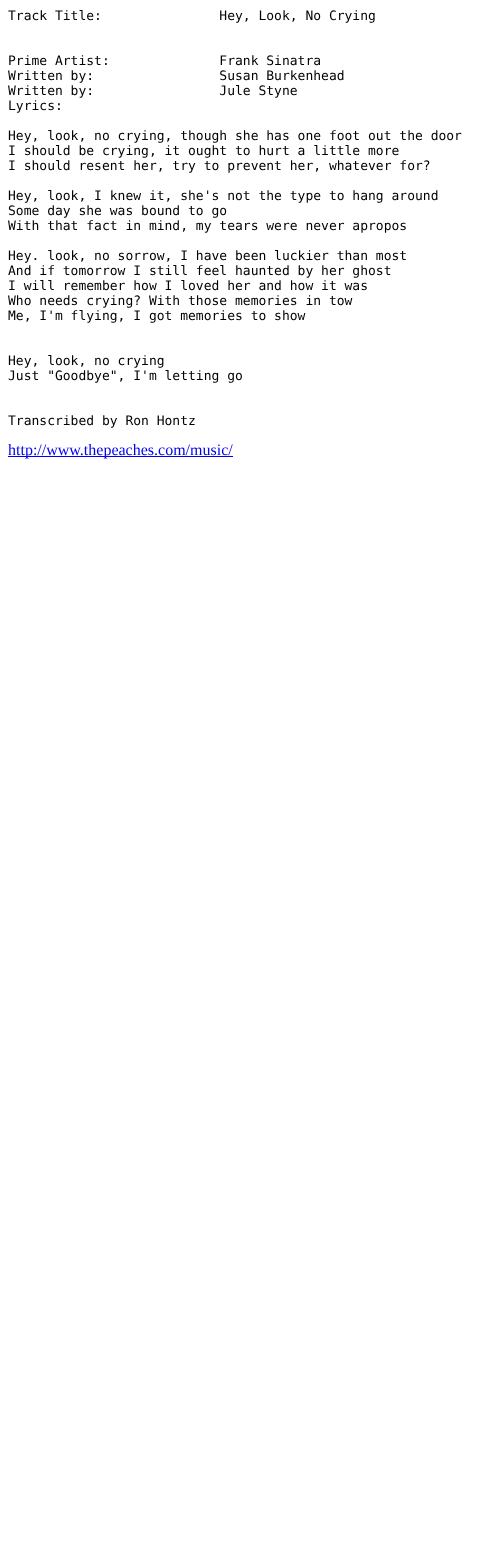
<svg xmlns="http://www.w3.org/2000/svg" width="502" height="1541">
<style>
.a{font:13px DejaVu Sans Mono;fill:#000}
.b{font:16px Liberation Serif;fill:#00e}
</style>
<rect width="100%" height="100%" fill="#fff"/>
<path fill="#00e" d="M8 456h225v1H8z"/>
<text class="a" xml:space="preserve" x="8" y="20">Track Title:               Hey, Look, No Crying</text>
<text class="a" xml:space="preserve" x="8" y="65">Prime Artist:              Frank Sinatra</text>
<text class="a" xml:space="preserve" x="8" y="80">Written by:                Susan Burkenhead</text>
<text class="a" xml:space="preserve" x="8" y="95">Written by:                Jule Styne</text>
<text class="a" x="8" y="110">Lyrics:</text>
<text class="a" x="8" y="140">Hey, look, no crying, though she has one foot out the door</text>
<text class="a" x="8" y="155">I should be crying, it ought to hurt a little more</text>
<text class="a" x="8" y="170">I should resent her, try to prevent her, whatever for?</text>
<text class="a" x="8" y="200">Hey, look, I knew it, she's not the type to hang around</text>
<text class="a" x="8" y="215">Some day she was bound to go</text>
<text class="a" x="8" y="230">With that fact in mind, my tears were never apropos</text>
<text class="a" x="8" y="260">Hey. look, no sorrow, I have been luckier than most</text>
<text class="a" x="8" y="275">And if tomorrow I still feel haunted by her ghost</text>
<text class="a" x="8" y="290">I will remember how I loved her and how it was</text>
<text class="a" x="8" y="305">Who needs crying? With those memories in tow</text>
<text class="a" x="8" y="320">Me, I'm flying, I got memories to show</text>
<text class="a" x="8" y="365">Hey, look, no crying</text>
<text class="a" x="8" y="380">Just "Goodbye", I'm letting go</text>
<text class="a" x="8" y="425">Transcribed by Ron Hontz</text>
<text class="b" x="8" y="455">http://www.thepeaches.com/music/</text>
</svg>
